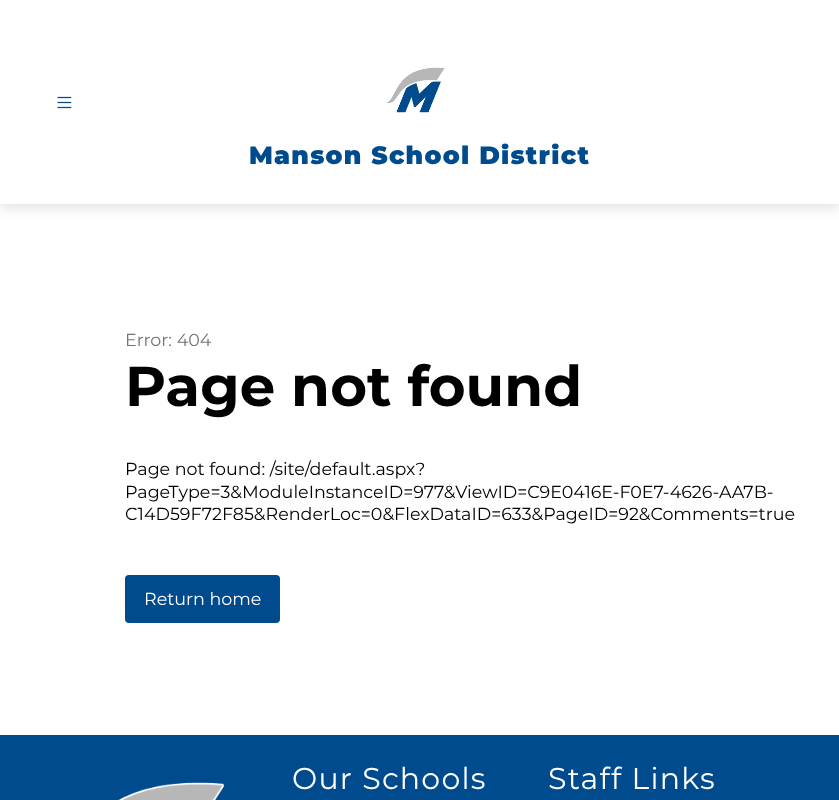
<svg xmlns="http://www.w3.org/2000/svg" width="839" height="800">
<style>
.a{font:900 25px Montserrat;letter-spacing:1.25px;fill:#004b8d}
.b{font:17.5px Montserrat;fill:#747474}
.c{font:bold 56.25px Montserrat;fill:#000}
.d{font:17.5px Montserrat;fill:#000}
.e{font:17.5px Montserrat;fill:#fff}
.f{font:30px Montserrat;letter-spacing:1.25px;fill:#fff}
</style>
<rect width="100%" height="100%" fill="#fff"/>
<path fill="#0000001a" filter="blur(6px)" d="M0 5h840v204H0z"/>
<path fill="#fff" d="M0 0h839v204H0z"/>
<image href="1.png" x="57" y="96" width="15" height="13"/>
<image href="2.png" x="386" y="67" width="59" height="46"/>
<rect fill="#004b8d" x="125" y="575" width="155" height="48" rx="4"/>
<path fill="#004b8d" d="M0 735h839v65H0z"/>
<image href="3.png" x="118" y="782" width="106" height="18"/>
<text class="a" x="249" y="164">Manson School District</text>
<text class="b" x="125" y="346">Error: 404</text>
<text class="c" x="125" y="406">Page not found</text>
<text class="d" x="125" y="475">Page not found: /site/default.aspx?</text>
<text class="d" x="125" y="498">PageType=3&amp;ModuleInstanceID=977&amp;ViewID=C9E0416E-F0E7-4626-AA7B-</text>
<text class="d" x="125" y="520">C14D59F72F85&amp;RenderLoc=0&amp;FlexDataID=633&amp;PageID=92&amp;Comments=true</text>
<text class="e" x="144" y="605">Return home</text>
<text class="f" x="292" y="789">Our Schools</text>
<text class="f" x="548" y="789">Staff Links</text>
</svg>
